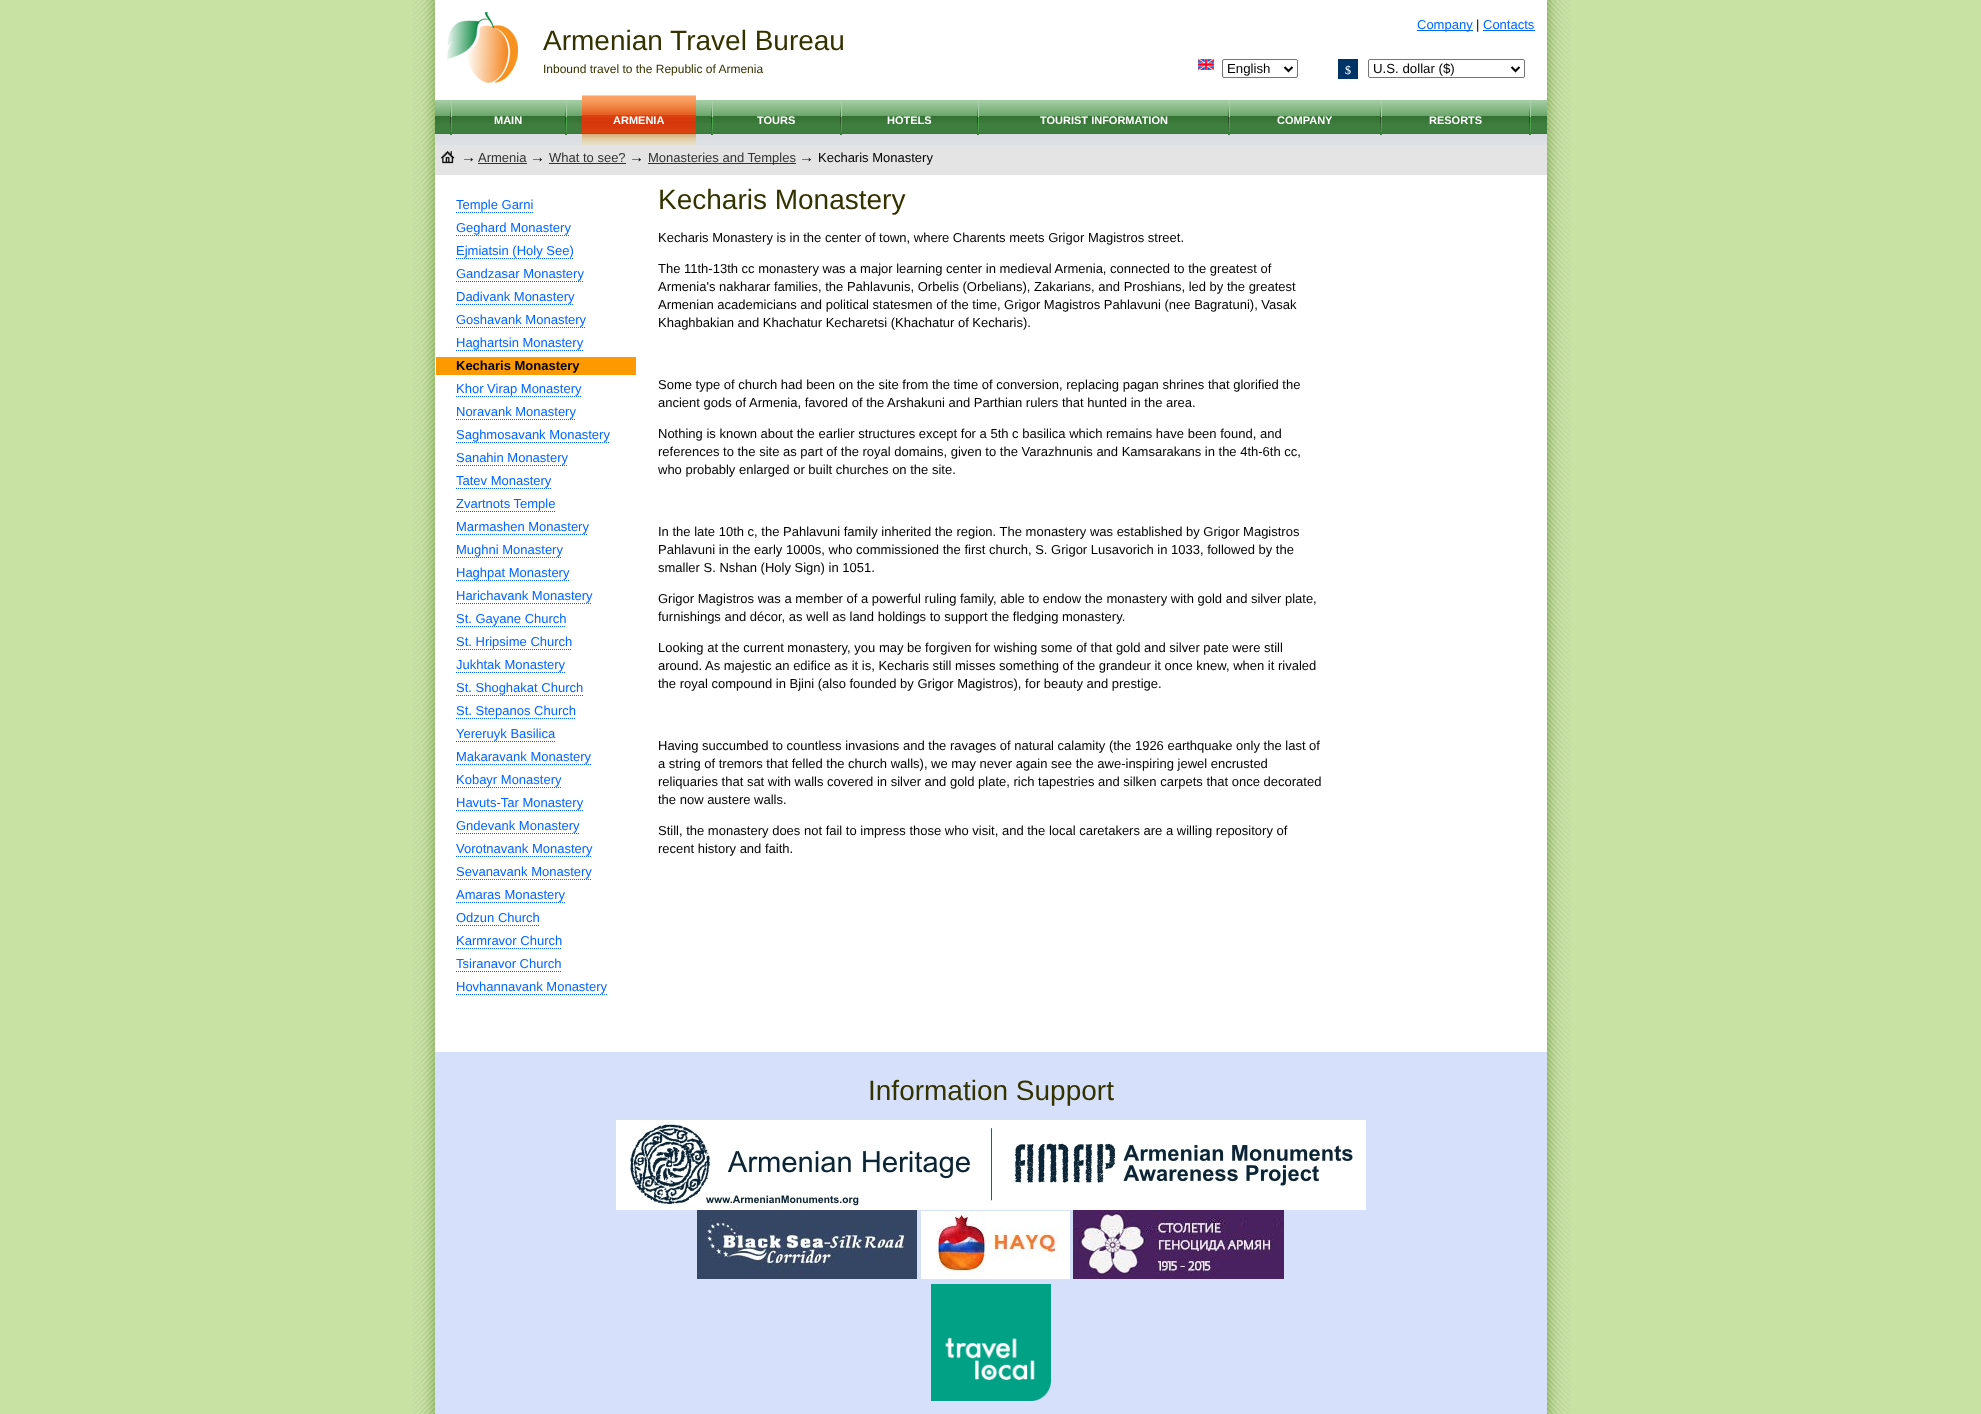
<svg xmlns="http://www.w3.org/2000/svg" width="1981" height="1414">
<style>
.a{font:13px Liberation Sans;fill:#06f}
.b{font:13px Liberation Sans;fill:#000}
.c{font:28px Liberation Sans;fill:#330}
.d{font:12px Liberation Sans;fill:#330}
.e{font:13.25px Liberation Sans;fill:#000}
.f{font:12px Liberation Serif;fill:#fff}
.g{font:bold 11px Liberation Sans;fill:#fff}
.h{font:15px Liberation Sans;fill:#000}
.i{font:13px Liberation Sans;fill:#333}
.j{font:bold 13px Liberation Sans;fill:#000}
</style>
<rect width="100%" height="100%" fill="#c8e2a4"/>
<image href="1.png" x="412" y="0" width="1159" height="1414"/>
<path fill="#fff" d="M435 0h1112v1052H435z"/>
<path fill="#06f" d="M1417 30h56v1H1417z"/>
<path fill="#06f" d="M1483 30h52v1H1483z"/>
<image href="2.png" x="447" y="12" width="71" height="71"/>
<image href="3.png" x="1198" y="59" width="16" height="11"/>
<rect fill="none" stroke="#767676" x="1222.5" y="59.5" width="75" height="18" rx="1.5"/>
<path fill="none" stroke="#000" stroke-width="2" d="M1284.5 67l4 4l4-4"/>
<path fill="#036" d="M1338 59h20v20H1338z"/>
<rect fill="none" stroke="#767676" x="1368.5" y="59.5" width="156" height="18" rx="1.5"/>
<path fill="none" stroke="#000" stroke-width="2" d="M1511.5 67l4 4l4-4"/>
<image href="4.png" x="435" y="100" width="1112" height="45"/>
<image href="5.png" x="450" y="101" width="2" height="34"/>
<image href="5.png" x="565" y="101" width="2" height="34"/>
<image href="6.png" x="582" y="95" width="114" height="50"/>
<image href="5.png" x="711" y="101" width="2" height="34"/>
<image href="5.png" x="840" y="101" width="2" height="34"/>
<image href="5.png" x="977" y="101" width="2" height="34"/>
<image href="5.png" x="1228" y="101" width="2" height="34"/>
<image href="5.png" x="1380" y="101" width="2" height="34"/>
<image href="5.png" x="1529" y="101" width="2" height="34"/>
<path fill="#e4e4e4" d="M435 145h1112v30H435z"/>
<image href="7.png" x="440" y="150" width="15" height="14"/>
<path fill="#333" d="M478 163h49v1H478z"/>
<path fill="#333" d="M549 163h77v1H549z"/>
<path fill="#333" d="M648 163h148v1H648z"/>
<path fill="none" stroke="#06f" stroke-dasharray="1 1" d="M456 212.5h77"/>
<path fill="none" stroke="#06f" stroke-dasharray="1 1" d="M456 235.5h114"/>
<path fill="none" stroke="#06f" stroke-dasharray="1 1" d="M456 258.5h117"/>
<path fill="none" stroke="#06f" stroke-dasharray="1 1" d="M456 281.5h127"/>
<path fill="none" stroke="#06f" stroke-dasharray="1 1" d="M456 304.5h118"/>
<path fill="none" stroke="#06f" stroke-dasharray="1 1" d="M456 327.5h130"/>
<path fill="none" stroke="#06f" stroke-dasharray="1 1" d="M456 350.5h127"/>
<path fill="#f90" d="M436 357h200v18H436z"/>
<path fill="none" stroke="#06f" stroke-dasharray="1 1" d="M456 396.5h125"/>
<path fill="none" stroke="#06f" stroke-dasharray="1 1" d="M456 419.5h119"/>
<path fill="none" stroke="#06f" stroke-dasharray="1 1" d="M456 442.5h153"/>
<path fill="none" stroke="#06f" stroke-dasharray="1 1" d="M456 465.5h112"/>
<path fill="none" stroke="#06f" stroke-dasharray="1 1" d="M456 488.5h95"/>
<path fill="none" stroke="#06f" stroke-dasharray="1 1" d="M456 511.5h99"/>
<path fill="none" stroke="#06f" stroke-dasharray="1 1" d="M456 534.5h132"/>
<path fill="none" stroke="#06f" stroke-dasharray="1 1" d="M456 557.5h106"/>
<path fill="none" stroke="#06f" stroke-dasharray="1 1" d="M456 580.5h113"/>
<path fill="none" stroke="#06f" stroke-dasharray="1 1" d="M456 603.5h136"/>
<path fill="none" stroke="#06f" stroke-dasharray="1 1" d="M456 626.5h110"/>
<path fill="none" stroke="#06f" stroke-dasharray="1 1" d="M456 649.5h116"/>
<path fill="none" stroke="#06f" stroke-dasharray="1 1" d="M456 672.5h109"/>
<path fill="none" stroke="#06f" stroke-dasharray="1 1" d="M456 695.5h127"/>
<path fill="none" stroke="#06f" stroke-dasharray="1 1" d="M456 718.5h119"/>
<path fill="none" stroke="#06f" stroke-dasharray="1 1" d="M456 741.5h99"/>
<path fill="none" stroke="#06f" stroke-dasharray="1 1" d="M456 764.5h135"/>
<path fill="none" stroke="#06f" stroke-dasharray="1 1" d="M456 787.5h105"/>
<path fill="none" stroke="#06f" stroke-dasharray="1 1" d="M456 810.5h127"/>
<path fill="none" stroke="#06f" stroke-dasharray="1 1" d="M456 833.5h123"/>
<path fill="none" stroke="#06f" stroke-dasharray="1 1" d="M456 856.5h136"/>
<path fill="none" stroke="#06f" stroke-dasharray="1 1" d="M456 879.5h135"/>
<path fill="none" stroke="#06f" stroke-dasharray="1 1" d="M456 902.5h109"/>
<path fill="none" stroke="#06f" stroke-dasharray="1 1" d="M456 925.5h83"/>
<path fill="none" stroke="#06f" stroke-dasharray="1 1" d="M456 948.5h106"/>
<path fill="none" stroke="#06f" stroke-dasharray="1 1" d="M456 971.5h105"/>
<path fill="none" stroke="#06f" stroke-dasharray="1 1" d="M456 994.5h151"/>
<path fill="#d7e0fb" d="M435 1052h1112v362H435z"/>
<image href="8.png" x="616" y="1120" width="750" height="90"/>
<image href="9.png" x="697" y="1210" width="220" height="69"/>
<image href="10.png" x="921" y="1211" width="149" height="68"/>
<image href="11.png" x="1073" y="1210" width="211" height="69"/>
<image href="12.png" x="931" y="1284" width="120" height="117"/>
<text class="a" x="1417" y="29">Company</text>
<text class="b" x="1476" y="29">|</text>
<text class="a" x="1483" y="29">Contacts</text>
<text class="c" x="543" y="50">Armenian Travel Bureau</text>
<text class="d" x="543" y="73">Inbound travel to the Republic of Armenia</text>
<text class="e" x="1227" y="73">English</text>
<text class="f" x="1345" y="74">$</text>
<text class="e" x="1373" y="73">U.S. dollar ($)</text>
<text class="g" x="494" y="124">MAIN</text>
<text class="g" x="613" y="124">ARMENIA</text>
<text class="g" x="757" y="124">TOURS</text>
<text class="g" x="887" y="124">HOTELS</text>
<text class="g" x="1040" y="124">TOURIST INFORMATION</text>
<text class="g" x="1277" y="124">COMPANY</text>
<text class="g" x="1429" y="124">RESORTS</text>
<text class="h" x="461" y="162">→</text>
<text class="i" x="478" y="162">Armenia</text>
<text class="h" x="530" y="162">→</text>
<text class="i" x="549" y="162">What to see?</text>
<text class="h" x="629" y="162">→</text>
<text class="i" x="648" y="162">Monasteries and Temples</text>
<text class="h" x="799" y="162">→</text>
<text class="b" x="818" y="162">Kecharis Monastery</text>
<text class="a" x="456" y="209">Temple Garni</text>
<text class="a" x="456" y="232">Geghard Monastery</text>
<text class="a" x="456" y="255">Ejmiatsin (Holy See)</text>
<text class="a" x="456" y="278">Gandzasar Monastery</text>
<text class="a" x="456" y="301">Dadivank Monastery</text>
<text class="a" x="456" y="324">Goshavank Monastery</text>
<text class="a" x="456" y="347">Haghartsin Monastery</text>
<text class="j" x="456" y="370">Kecharis Monastery</text>
<text class="a" x="456" y="393">Khor Virap Monastery</text>
<text class="a" x="456" y="416">Noravank Monastery</text>
<text class="a" x="456" y="439">Saghmosavank Monastery</text>
<text class="a" x="456" y="462">Sanahin Monastery</text>
<text class="a" x="456" y="485">Tatev Monastery</text>
<text class="a" x="456" y="508">Zvartnots Temple</text>
<text class="a" x="456" y="531">Marmashen Monastery</text>
<text class="a" x="456" y="554">Mughni Monastery</text>
<text class="a" x="456" y="577">Haghpat Monastery</text>
<text class="a" x="456" y="600">Harichavank Monastery</text>
<text class="a" x="456" y="623">St. Gayane Church</text>
<text class="a" x="456" y="646">St. Hripsime Church</text>
<text class="a" x="456" y="669">Jukhtak Monastery</text>
<text class="a" x="456" y="692">St. Shoghakat Church</text>
<text class="a" x="456" y="715">St. Stepanos Church</text>
<text class="a" x="456" y="738">Yereruyk Basilica</text>
<text class="a" x="456" y="761">Makaravank Monastery</text>
<text class="a" x="456" y="784">Kobayr Monastery</text>
<text class="a" x="456" y="807">Havuts-Tar Monastery</text>
<text class="a" x="456" y="830">Gndevank Monastery</text>
<text class="a" x="456" y="853">Vorotnavank Monastery</text>
<text class="a" x="456" y="876">Sevanavank Monastery</text>
<text class="a" x="456" y="899">Amaras Monastery</text>
<text class="a" x="456" y="922">Odzun Church</text>
<text class="a" x="456" y="945">Karmravor Church</text>
<text class="a" x="456" y="968">Tsiranavor Church</text>
<text class="a" x="456" y="991">Hovhannavank Monastery</text>
<text class="c" x="658" y="209">Kecharis Monastery</text>
<text class="b" x="658" y="242">Kecharis Monastery is in the center of town, where Charents meets Grigor Magistros street.</text>
<text class="b" x="658" y="273">The 11th-13th cc monastery was a major learning center in medieval Armenia, connected to the greatest of</text>
<text class="b" x="658" y="291">Armenia's nakharar families, the Pahlavunis, Orbelis (Orbelians), Zakarians, and Proshians, led by the greatest</text>
<text class="b" x="658" y="309">Armenian academicians and political statesmen of the time, Grigor Magistros Pahlavuni (nee Bagratuni), Vasak</text>
<text class="b" x="658" y="327">Khaghbakian and Khachatur Kecharetsi (Khachatur of Kecharis).</text>
<text class="b" x="658" y="389">Some type of church had been on the site from the time of conversion, replacing pagan shrines that glorified the</text>
<text class="b" x="658" y="407">ancient gods of Armenia, favored of the Arshakuni and Parthian rulers that hunted in the area.</text>
<text class="b" x="658" y="438">Nothing is known about the earlier structures except for a 5th c basilica which remains have been found, and</text>
<text class="b" x="658" y="456">references to the site as part of the royal domains, given to the Varazhnunis and Kamsarakans in the 4th-6th cc,</text>
<text class="b" x="658" y="474">who probably enlarged or built churches on the site.</text>
<text class="b" x="658" y="536">In the late 10th c, the Pahlavuni family inherited the region. The monastery was established by Grigor Magistros</text>
<text class="b" x="658" y="554">Pahlavuni in the early 1000s, who commissioned the first church, S. Grigor Lusavorich in 1033, followed by the</text>
<text class="b" x="658" y="572">smaller S. Nshan (Holy Sign) in 1051.</text>
<text class="b" x="658" y="603">Grigor Magistros was a member of a powerful ruling family, able to endow the monastery with gold and silver plate,</text>
<text class="b" x="658" y="621">furnishings and décor, as well as land holdings to support the fledging monastery.</text>
<text class="b" x="658" y="652">Looking at the current monastery, you may be forgiven for wishing some of that gold and silver pate were still</text>
<text class="b" x="658" y="670">around. As majestic an edifice as it is, Kecharis still misses something of the grandeur it once knew, when it rivaled</text>
<text class="b" x="658" y="688">the royal compound in Bjini (also founded by Grigor Magistros), for beauty and prestige.</text>
<text class="b" x="658" y="750">Having succumbed to countless invasions and the ravages of natural calamity (the 1926 earthquake only the last of</text>
<text class="b" x="658" y="768">a string of tremors that felled the church walls), we may never again see the awe-inspiring jewel encrusted</text>
<text class="b" x="658" y="786">reliquaries that sat with walls covered in silver and gold plate, rich tapestries and silken carpets that once decorated</text>
<text class="b" x="658" y="804">the now austere walls.</text>
<text class="b" x="658" y="835">Still, the monastery does not fail to impress those who visit, and the local caretakers are a willing repository of</text>
<text class="b" x="658" y="853">recent history and faith.</text>
<text class="c" x="868" y="1100">Information Support</text>
</svg>
